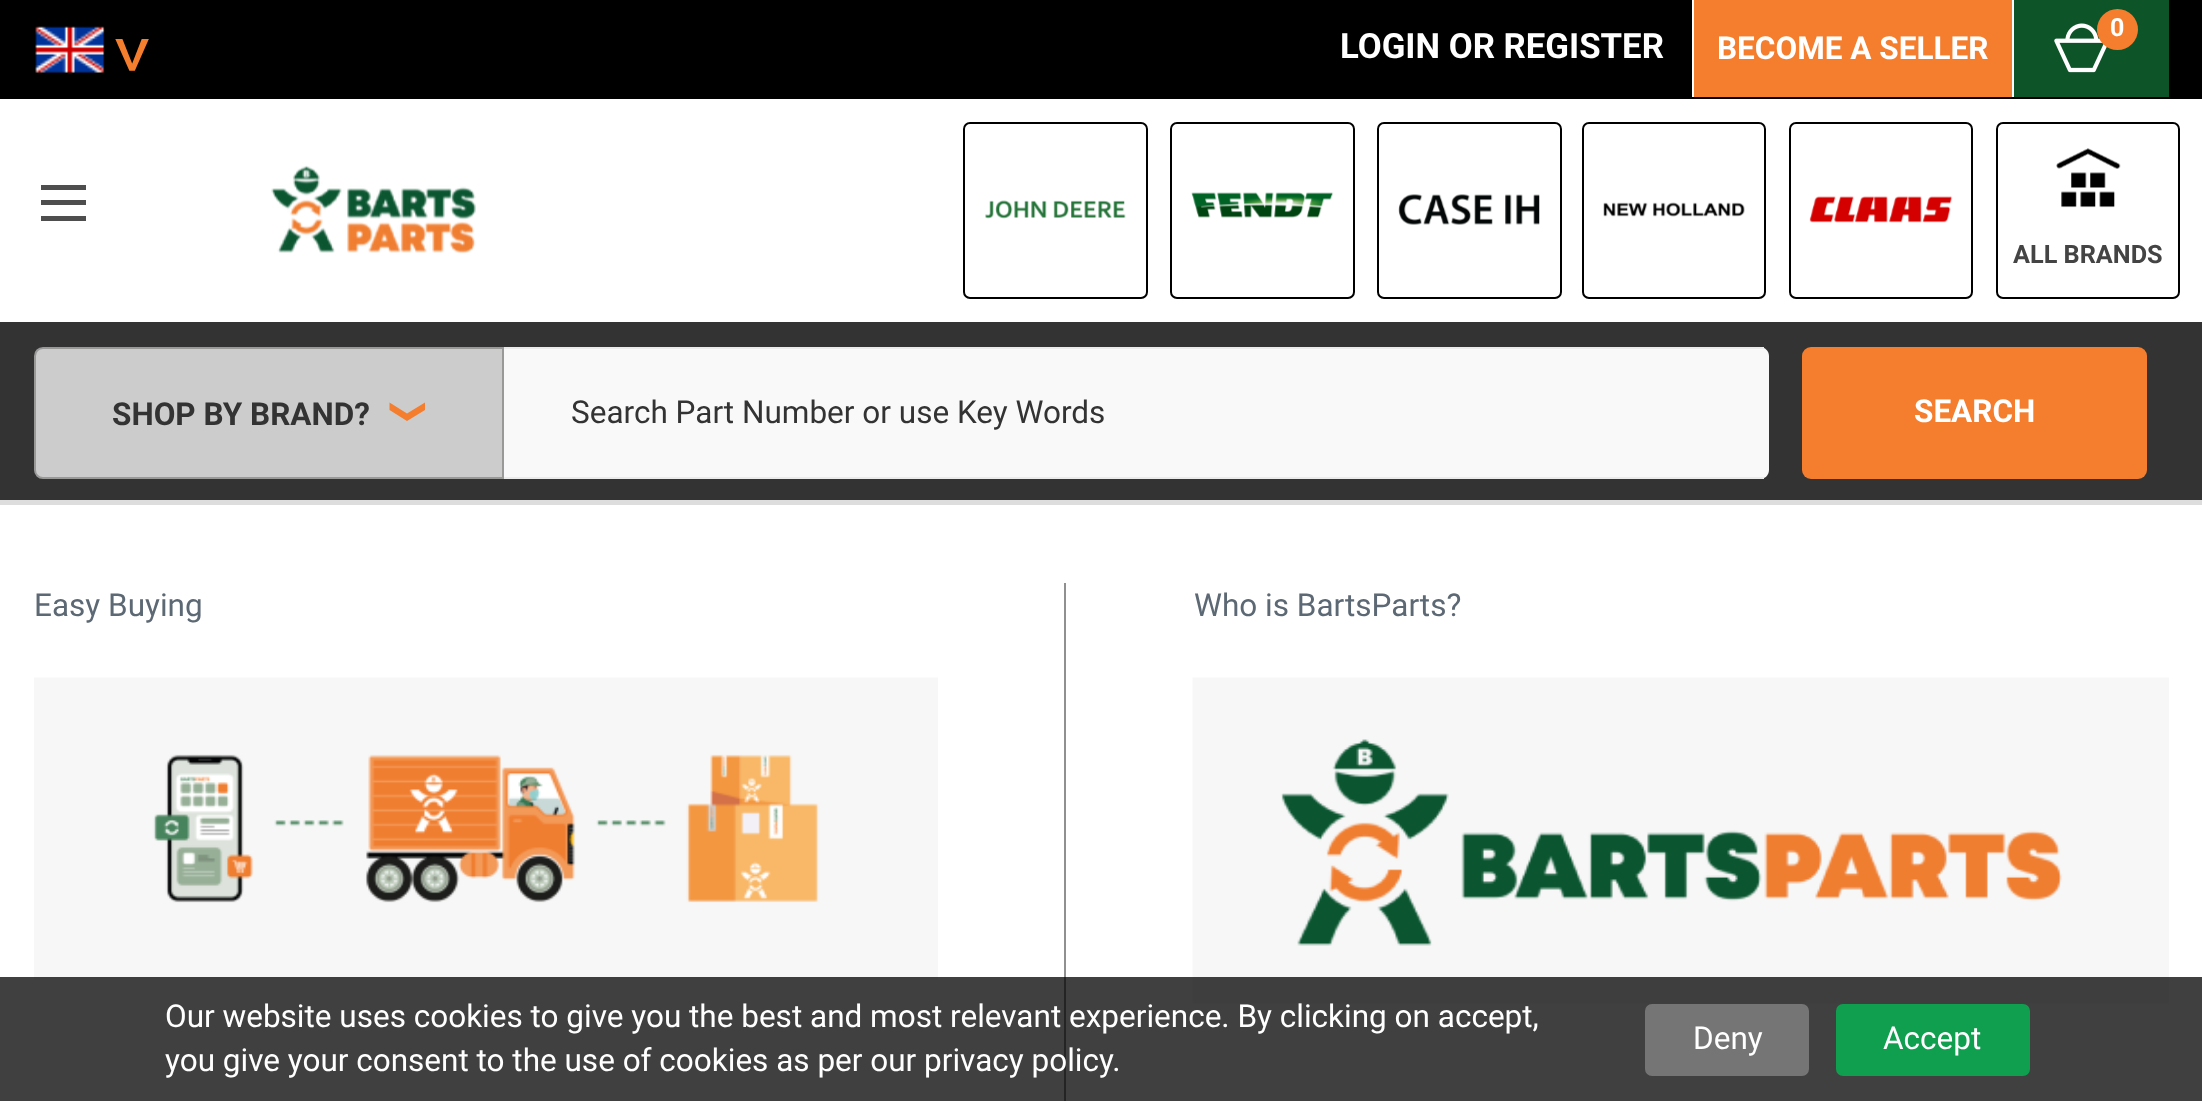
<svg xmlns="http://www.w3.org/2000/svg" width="2202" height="1101">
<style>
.a{font:76px Roboto;letter-spacing:-22px;fill:#f47e2e}
.b{font:bold 25px Roboto;fill:#fff}
.c{font:bold 34.75px Roboto;fill:#fff}
.d{font:bold 31.5px Roboto;fill:#fff}
.e{font:bold 25.25px Roboto;fill:#444}
.f{font:bold 31.5px Roboto;fill:#333}
.g{font:31.5px Roboto;fill:#333}
.h{font:31.5px Roboto;fill:#5c6873}
.i{font:31.5px Roboto;fill:#fff}
</style>
<rect width="100%" height="100%" fill="#fff"/>
<path fill="#ddd" d="M0 500h2202v5H0z"/>
<path fill="#000" d="M0 0h2202v99H0z"/>
<image href="1.png" x="35" y="26" width="70" height="47"/>
<path fill="#0e5429" d="M2014 0h155v97H2014z"/>
<image href="2.png" x="2054" y="23" width="53" height="50"/>
<circle fill="#f47e2e" cx="2117.5" cy="29.5" r="20.5"/>
<path fill="#f47e2e" d="M1694 0h318v97H1694z"/>
<path fill="#fff" d="M2012 0h2v97H2012z"/>
<path fill="#fff" d="M1692 0h2v97H1692z"/>
<path fill="#4e4e4e" d="M41 200h45v5H41z"/>
<path fill="#4e4e4e" d="M41 185h45v5H41z"/>
<path fill="#4e4e4e" d="M41 216h45v5H41z"/>
<image href="3.png" x="271" y="165" width="205" height="89"/>
<rect fill="none" stroke="#000" stroke-width="2" x="964" y="123" width="183" height="175" rx="6"/>
<image href="4.png" x="985" y="200" width="141" height="19"/>
<rect fill="none" stroke="#000" stroke-width="2" x="1171" y="123" width="183" height="175" rx="6"/>
<image href="5.png" x="1191" y="192" width="143" height="26"/>
<rect fill="none" stroke="#000" stroke-width="2" x="1378" y="123" width="183" height="175" rx="6"/>
<image href="6.png" x="1398" y="194" width="142" height="31"/>
<rect fill="none" stroke="#000" stroke-width="2" x="1583" y="123" width="182" height="175" rx="6"/>
<image href="7.png" x="1603" y="202" width="142" height="15"/>
<rect fill="none" stroke="#000" stroke-width="2" x="1790" y="123" width="182" height="175" rx="6"/>
<image href="8.png" x="1809" y="196" width="144" height="27"/>
<rect fill="none" stroke="#000" stroke-width="2" x="1997" y="123" width="182" height="175" rx="6"/>
<image href="9.png" x="2056" y="148" width="65" height="60"/>
<path fill="#333" d="M0 322h2202v178H0z"/>
<path fill="#ccc" stroke="#999998" stroke-width="2" d="M43 348h460v130h-460c-4.5 0-8-3.5-8-8v-114c0-4.5 3.5-8 8-8z"/>
<path fill="#f47e2e" d="M425 402.5l-18 11l-17.5-11v7.5l17.5 11l18-11z"/>
<path fill="#f9f9f9" d="M504 347h1256c5 0 9 4 9 9v114c0 5-4 9-9 9h-1256z"/>
<path fill="#ebebeb" d="M504 347h1260v2H504z"/>
<path fill="#ebebeb" d="M504 477h1260v2H504z"/>
<rect fill="#f47e2e" x="1802" y="347" width="345" height="132" rx="9"/>
<path fill="#909090" d="M1064 583h2v518H1064z"/>
<image href="10.png" x="34" y="677" width="904" height="303"/>
<image href="11.png" x="1192" y="677" width="977" height="327"/>
<path fill="#000000bf" d="M0 977h2202v124H0z"/>
<rect fill="#757575" stroke="#757575" stroke-width="2" x="1646" y="1005" width="162" height="70" rx="6"/>
<rect fill="#0f9f4f" stroke="#0f9f4f" stroke-width="2" x="1837" y="1005" width="192" height="70" rx="6"/>
<text class="a" x="108" y="34" transform="rotate(90 108 34)">&gt;</text>
<text class="b" x="2110" y="36">0</text>
<text class="c" x="1340" y="58">LOGIN OR REGISTER</text>
<text class="d" x="1717" y="59">BECOME A SELLER</text>
<text class="e" x="2013" y="263">ALL BRANDS</text>
<text class="f" x="112" y="425">SHOP BY BRAND?</text>
<text class="g" x="571" y="423">Search Part Number or use Key Words</text>
<text class="d" x="1914" y="422">SEARCH</text>
<text class="h" x="34" y="616">Easy Buying</text>
<text class="h" x="1194" y="616">Who is BartsParts?</text>
<text class="i" x="165" y="1027">Our website uses cookies to give you the best and most relevant experience. By clicking on accept,</text>
<text class="i" x="165" y="1071">you give your consent to the use of cookies as per our privacy policy.</text>
<text class="i" x="1693" y="1049">Deny</text>
<text class="i" x="1883" y="1049">Accept</text>
</svg>
